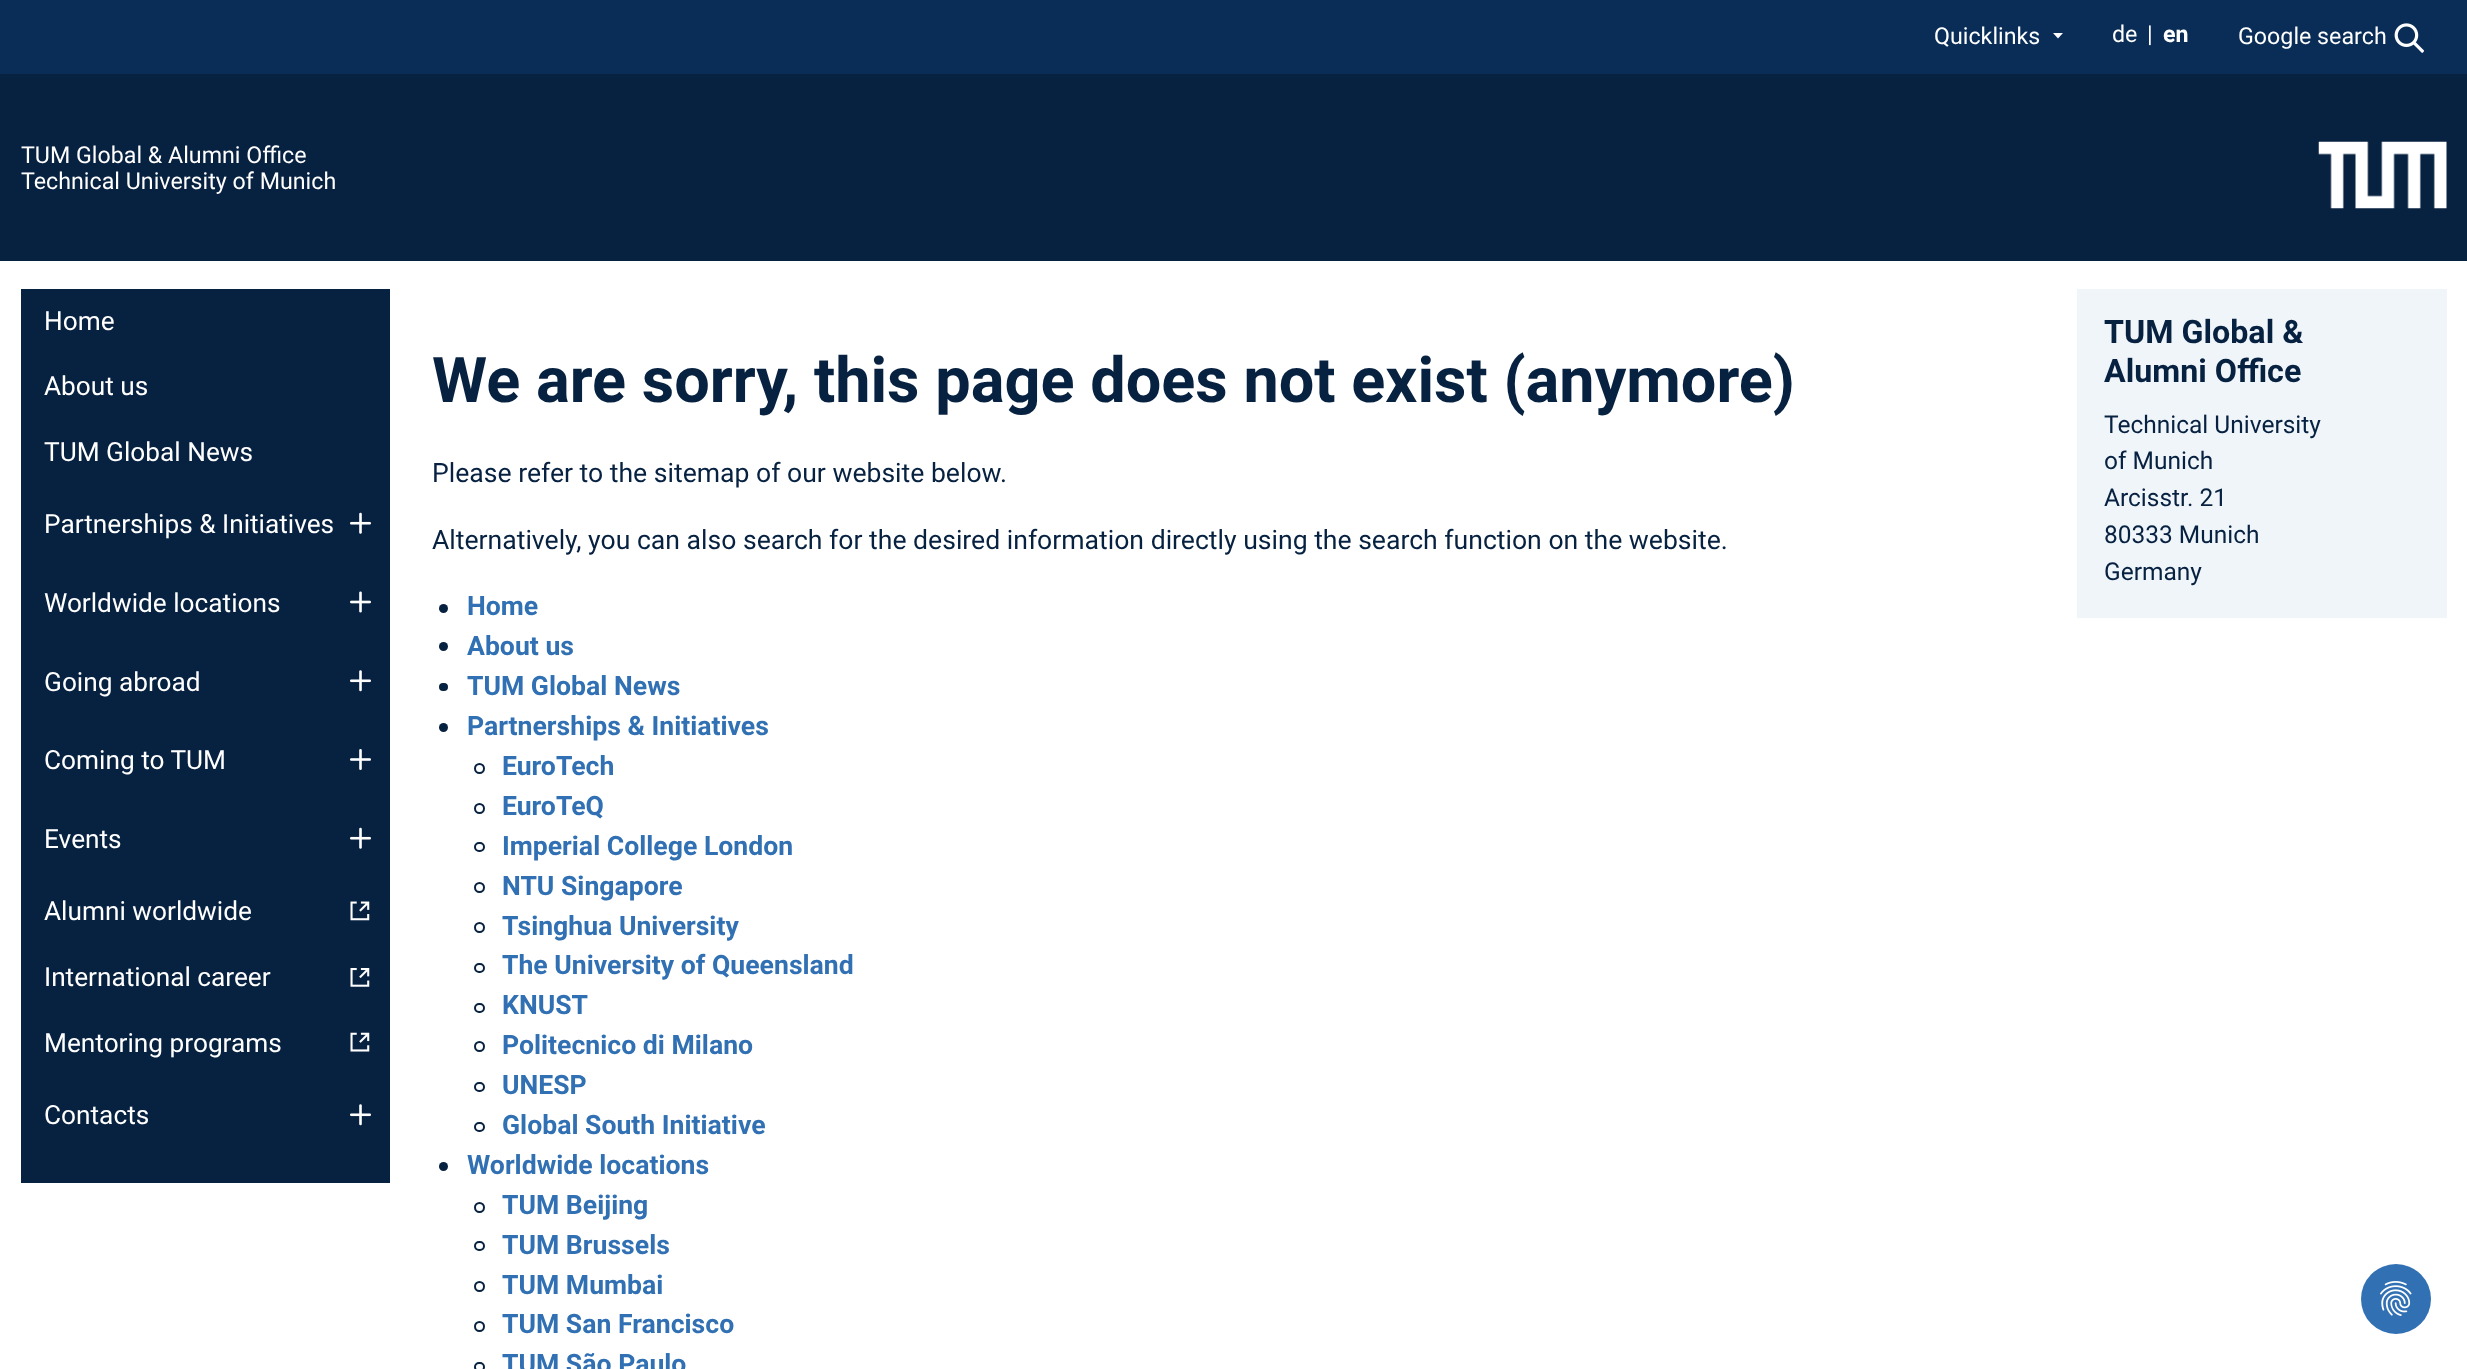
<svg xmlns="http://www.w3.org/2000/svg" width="2467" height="1369">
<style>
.a{font:23.25px Roboto;fill:#fff}
.b{font:bold 23.25px Roboto;fill:#fff}
.c{font:26.25px Roboto;fill:#fff}
.d{font:bold 63px Roboto;fill:#072140}
.e{font:26.6px Roboto;fill:#072140}
.f{font:bold 26.6px Roboto;fill:#3070b3}
.g{font:bold 32.25px Roboto;fill:#072140}
.h{font:24.5px Roboto;fill:#072140}
</style>
<rect width="100%" height="100%" fill="#fff"/>
<path fill="#0a2d57" d="M0 0h2467v74H0z"/>
<path fill="#fff" d="M2053 33h10l-5 5.5z"/>
<image href="1.png" x="2394" y="23" width="30" height="30"/>
<path fill="#072140" d="M0 74h2467v187H0z"/>
<image href="2.png" x="2318" y="141" width="129" height="68"/>
<path fill="#072140" d="M21 289h369v894H21z"/>
<image href="3.png" x="350" y="512" width="21" height="22"/>
<image href="4.png" x="350" y="591" width="21" height="22"/>
<image href="5.png" x="350" y="670" width="21" height="22"/>
<image href="6.png" x="350" y="749" width="21" height="21"/>
<image href="3.png" x="350" y="827" width="21" height="22"/>
<image href="7.png" x="350" y="901" width="20" height="20"/>
<image href="8.png" x="350" y="968" width="20" height="19"/>
<image href="9.png" x="350" y="1032" width="20" height="20"/>
<image href="5.png" x="350" y="1104" width="21" height="22"/>
<circle fill="#072140" cx="443.5" cy="608.5" r="4.5"/>
<circle fill="#072140" cx="443.5" cy="646.5" r="4.5"/>
<rect fill="#072140" x="439" y="683" width="9" height="8" rx="4"/>
<circle fill="#072140" cx="443.5" cy="727.5" r="4.5"/>
<circle fill="none" stroke="#072140" stroke-width="2" cx="479.5" cy="768.5" r="4.5"/>
<circle fill="none" stroke="#072140" stroke-width="2" cx="479.5" cy="808.5" r="4.5"/>
<rect fill="none" stroke="#072140" stroke-width="2" x="475" y="843" width="9" height="8" rx="4"/>
<circle fill="none" stroke="#072140" stroke-width="2" cx="479.5" cy="887.5" r="4.5"/>
<circle fill="none" stroke="#072140" stroke-width="2" cx="479.5" cy="927.5" r="4.5"/>
<rect fill="none" stroke="#072140" stroke-width="2" x="475" y="964" width="9" height="8" rx="4"/>
<rect fill="none" stroke="#072140" stroke-width="2" x="475" y="1004" width="9" height="8" rx="4"/>
<circle fill="none" stroke="#072140" stroke-width="2" cx="479.5" cy="1046.5" r="4.5"/>
<rect fill="none" stroke="#072140" stroke-width="2" x="475" y="1083" width="9" height="8" rx="4"/>
<rect fill="none" stroke="#072140" stroke-width="2" x="475" y="1123" width="9" height="8" rx="4"/>
<circle fill="#072140" cx="443.5" cy="1166.5" r="4.5"/>
<circle fill="none" stroke="#072140" stroke-width="2" cx="479.5" cy="1207.5" r="4.5"/>
<rect fill="none" stroke="#072140" stroke-width="2" x="475" y="1242" width="9" height="8" rx="4"/>
<circle fill="none" stroke="#072140" stroke-width="2" cx="479.5" cy="1286.5" r="4.5"/>
<circle fill="none" stroke="#072140" stroke-width="2" cx="479.5" cy="1326.5" r="4.5"/>
<rect fill="none" stroke="#072140" stroke-width="2" x="475" y="1363" width="9" height="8" rx="4"/>
<path fill="#f0f5fa" d="M2077 289h370v329H2077z"/>
<circle fill="#3070b3" cx="2396" cy="1299" r="35"/>
<image href="10.png" x="2380" y="1281" width="32" height="35"/>
<text class="a" x="1934" y="44">Quicklinks</text>
<text class="a" x="2112" y="42">de</text>
<text class="a" x="2147" y="42">|</text>
<text class="b" x="2163" y="42">en</text>
<text class="a" x="2238" y="44">Google search</text>
<text class="a" x="21" y="163">TUM Global &amp; Alumni Office</text>
<text class="a" x="21" y="189">Technical University of Munich</text>
<text class="c" x="44" y="330">Home</text>
<text class="c" x="44" y="395">About us</text>
<text class="c" x="44" y="461">TUM Global News</text>
<text class="c" x="44" y="533">Partnerships &amp; Initiatives</text>
<text class="c" x="44" y="612">Worldwide locations</text>
<text class="c" x="44" y="691">Going abroad</text>
<text class="c" x="44" y="769">Coming to TUM</text>
<text class="c" x="44" y="848">Events</text>
<text class="c" x="44" y="920">Alumni worldwide</text>
<text class="c" x="44" y="986">International career</text>
<text class="c" x="44" y="1052">Mentoring programs</text>
<text class="c" x="44" y="1124">Contacts</text>
<text class="d" x="432" y="402">We are sorry, this page does not exist (anymore)</text>
<text class="e" x="432" y="482">Please refer to the sitemap of our website below.</text>
<text class="e" x="432" y="549">Alternatively, you can also search for the desired information directly using the search function on the website.</text>
<text class="f" x="467" y="615">Home</text>
<text class="f" x="467" y="655">About us</text>
<text class="f" x="467" y="695">TUM Global News</text>
<text class="f" x="467" y="735">Partnerships &amp; Initiatives</text>
<text class="f" x="502" y="775">EuroTech</text>
<text class="f" x="502" y="815">EuroTeQ</text>
<text class="f" x="502" y="855">Imperial College London</text>
<text class="f" x="502" y="895">NTU Singapore</text>
<text class="f" x="502" y="935">Tsinghua University</text>
<text class="f" x="502" y="974">The University of Queensland</text>
<text class="f" x="502" y="1014">KNUST</text>
<text class="f" x="502" y="1054">Politecnico di Milano</text>
<text class="f" x="502" y="1094">UNESP</text>
<text class="f" x="502" y="1134">Global South Initiative</text>
<text class="f" x="467" y="1174">Worldwide locations</text>
<text class="f" x="502" y="1214">TUM Beijing</text>
<text class="f" x="502" y="1254">TUM Brussels</text>
<text class="f" x="502" y="1294">TUM Mumbai</text>
<text class="f" x="502" y="1333">TUM San Francisco</text>
<text class="f" x="502" y="1373">TUM São Paulo</text>
<text class="g" x="2104" y="343">TUM Global &amp;</text>
<text class="g" x="2104" y="382">Alumni Office</text>
<text class="h" x="2104" y="433">Technical University</text>
<text class="h" x="2104" y="469">of Munich</text>
<text class="h" x="2104" y="506">Arcisstr. 21</text>
<text class="h" x="2104" y="543">80333 Munich</text>
<text class="h" x="2104" y="580">Germany</text>
</svg>
